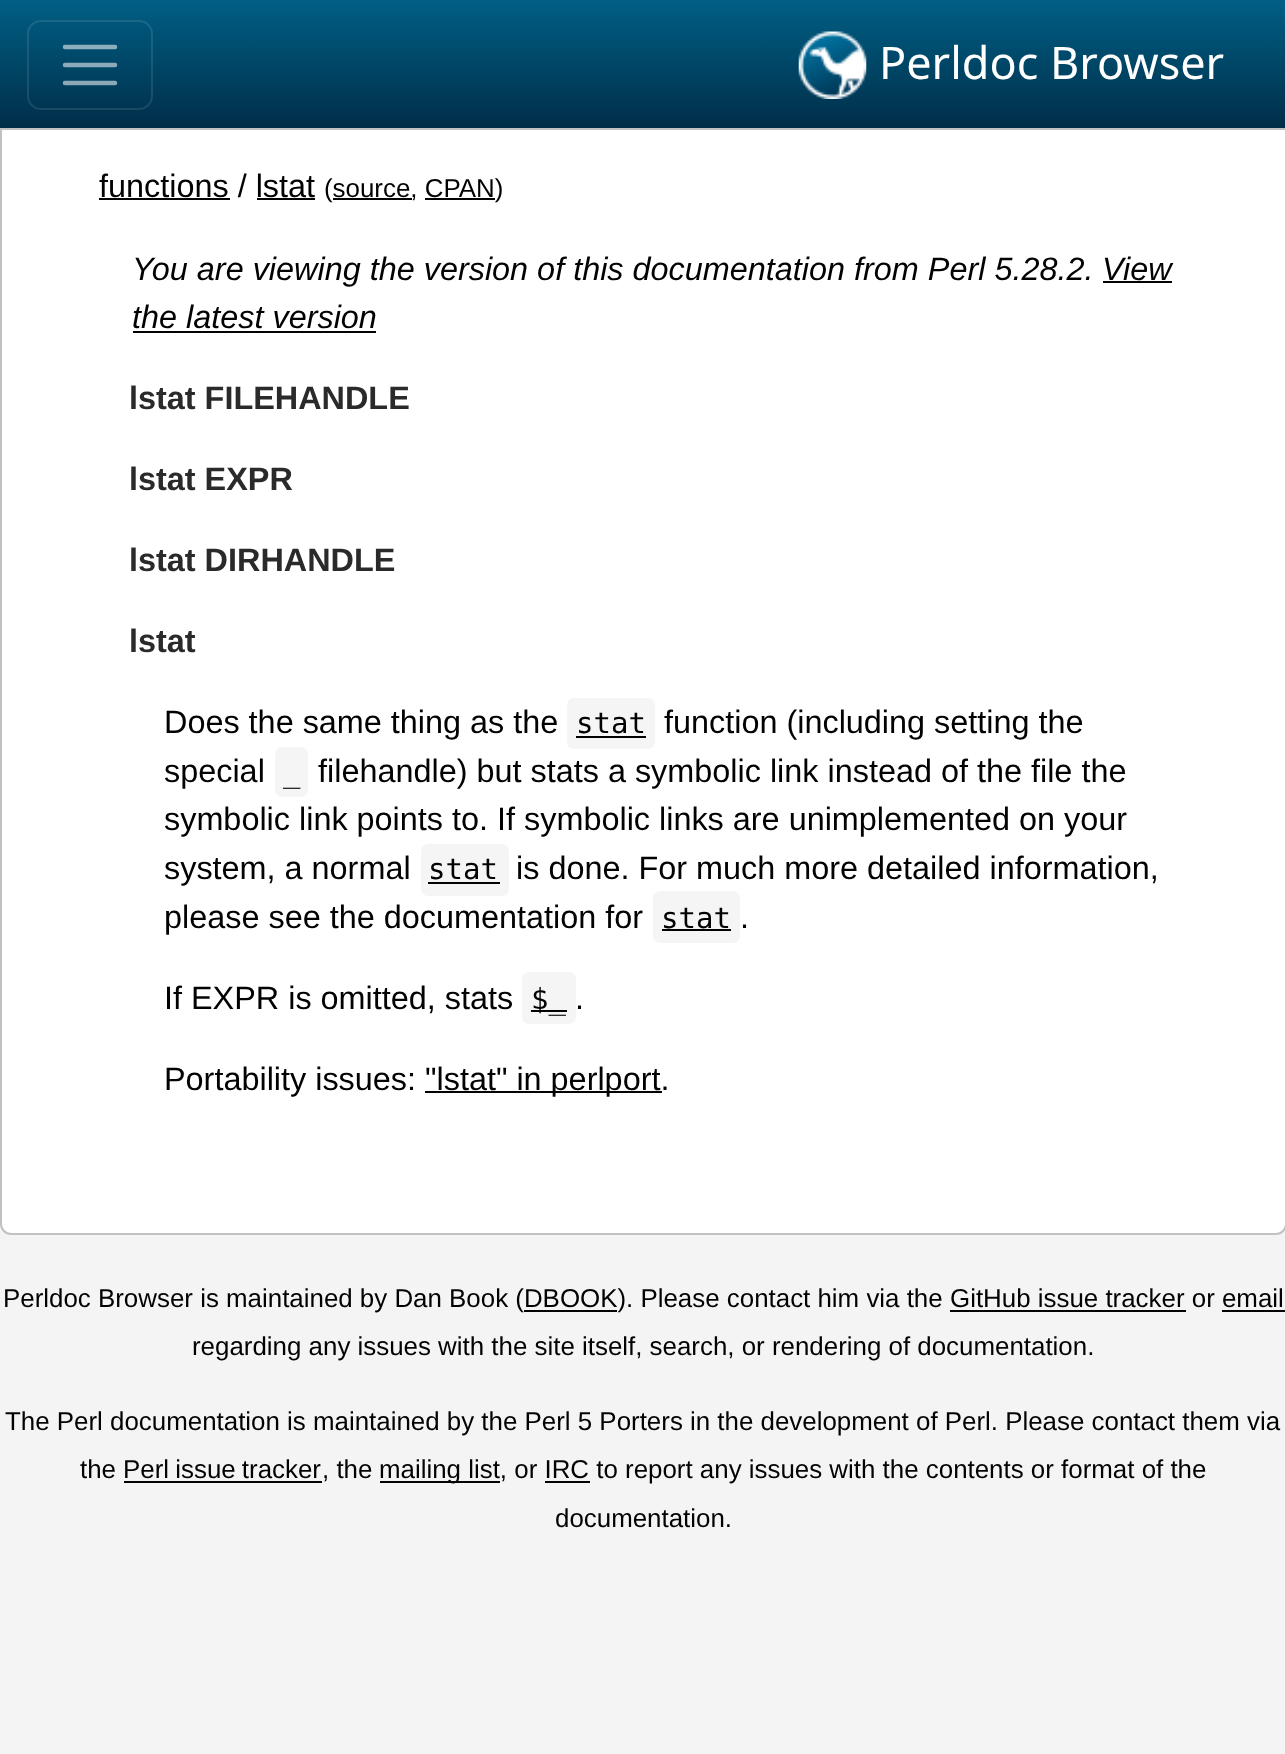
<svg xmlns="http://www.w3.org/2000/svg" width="1285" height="1754">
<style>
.a{font:45px Noto Sans;fill:#fff}
.b{font:32.4px Liberation Sans;fill:#020202}
.c{font:25.9px Liberation Sans;fill:#020202}
.d{font:italic 32.4px Liberation Sans;fill:#020202}
.e{font:bold 32.4px Liberation Sans;fill:#2a2a2a}
.f{font:29px DejaVu Sans Mono;fill:#020202}
</style>
<defs>
<linearGradient id="g1" gradientUnits="userSpaceOnUse" x1="644" y1="0" x2="644" y2="128"><stop offset="0" stop-color="#005f85"/><stop offset="1" stop-color="#002e49"/></linearGradient>
</defs>
<rect width="100%" height="100%" fill="#f4f4f5"/>
<path fill="url(#g1)" d="M0 0h1285v128H0z"/>
<rect fill="none" stroke="#ffffff1a" stroke-width="2" x="28" y="21" width="124" height="88" rx="13"/>
<path fill="none" stroke="#ffffff8c" stroke-width="4.5" stroke-linecap="round" d="M65 47h50m-50 18h50m-50 18h50"/>
<image href="1.png" x="798" y="31" width="69" height="68"/>
<path fill="#fff" stroke="#c1c1c1" stroke-width="2" d="M1 129h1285v1095c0 5.5-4.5 10-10 10h-1265c-5.5 0-10-4.5-10-10z"/>
<path fill="#020202" d="M99 198h131v2H99z"/>
<path fill="#020202" d="M333 198h79v2H333z"/>
<path fill="#020202" d="M425 198h70v2H425z"/>
<path fill="#020202" d="M257 198h58v2H257z"/>
<path fill="#020202" d="M1103 281h69v2H1103z"/>
<path fill="#020202" d="M133 331h243v2H133z"/>
<rect fill="#f5f5f5" x="567" y="698" width="88" height="51" rx="7"/>
<path fill="#020202" d="M576 736h70v2H576z"/>
<rect fill="#f5f5f5" x="275" y="747" width="33" height="50" rx="7"/>
<rect fill="#f5f5f5" x="421" y="844" width="88" height="52" rx="7"/>
<path fill="#020202" d="M428 882h72v2H428z"/>
<rect fill="#f5f5f5" x="653" y="891" width="87" height="52" rx="7"/>
<path fill="#020202" d="M662 929h69v2H662z"/>
<rect fill="#f5f5f5" x="522" y="972" width="54" height="52" rx="7"/>
<path fill="#020202" d="M531 1010h36v2H531z"/>
<path fill="#020202" d="M425 1091h237v2H425z"/>
<path fill="#020202" d="M950 1310h236v2H950z"/>
<path fill="#020202" d="M524 1310h93v2H524z"/>
<path fill="#020202" d="M1222 1310h63v2H1222z"/>
<path fill="#020202" d="M124 1481h198v2H124z"/>
<path fill="#020202" d="M380 1481h120v2H380z"/>
<path fill="#020202" d="M545 1481h45v2H545z"/>
<text class="a" x="879" y="79">Perldoc Browser</text>
<text class="b" x="99" y="197">functions / lstat</text>
<text class="c" x="324" y="197">(source, CPAN)</text>
<text class="d" x="132" y="280">You are viewing the version of this documentation from Perl 5.28.2.</text>
<text class="d" x="1102" y="280">View</text>
<text class="d" x="132" y="328">the latest version</text>
<text class="e" x="129" y="409">lstat FILEHANDLE</text>
<text class="e" x="129" y="490">lstat EXPR</text>
<text class="e" x="129" y="571">lstat DIRHANDLE</text>
<text class="e" x="129" y="652">lstat</text>
<text class="b" x="164" y="733">Does the same thing as the</text>
<text class="f" x="576" y="733">stat</text>
<text class="b" x="664" y="733">function (including setting the</text>
<text class="b" x="164" y="782">special</text>
<text class="f" x="283" y="782">_</text>
<text class="b" x="318" y="782">filehandle) but stats a symbolic link instead of the file the</text>
<text class="b" x="164" y="830">symbolic link points to. If symbolic links are unimplemented on your</text>
<text class="b" x="164" y="879">system, a normal</text>
<text class="f" x="428" y="879">stat</text>
<text class="b" x="516" y="879">is done. For much more detailed information,</text>
<text class="b" x="164" y="928">please see the documentation for</text>
<text class="f" x="661" y="928">stat</text>
<text class="b" x="740" y="928">.</text>
<text class="b" x="164" y="1009">If EXPR is omitted, stats</text>
<text class="f" x="531" y="1009">$_</text>
<text class="b" x="575" y="1009">.</text>
<text class="b" x="164" y="1090">Portability issues:</text>
<text class="b" x="425" y="1090">"lstat" in perlport.</text>
<text class="c" x="3" y="1307">Perldoc Browser is maintained by Dan Book (DBOOK). Please contact him via the</text>
<text class="c" x="950" y="1307">GitHub issue tracker or email</text>
<text class="c" x="192" y="1355">regarding any issues with the site itself, search, or rendering of documentation.</text>
<text class="c" x="5" y="1430">The Perl documentation is maintained by the Perl 5 Porters in the development of Perl. Please contact them via</text>
<text class="c" x="80" y="1478">the</text>
<text class="c" x="123" y="1478" word-spacing="-1">Perl issue tracker</text>
<text class="c" x="322" y="1478">, the</text>
<text class="c" x="379" y="1478">mailing list, or IRC to report any issues with the contents or format of the</text>
<text class="c" x="555" y="1527">documentation.</text>
</svg>
